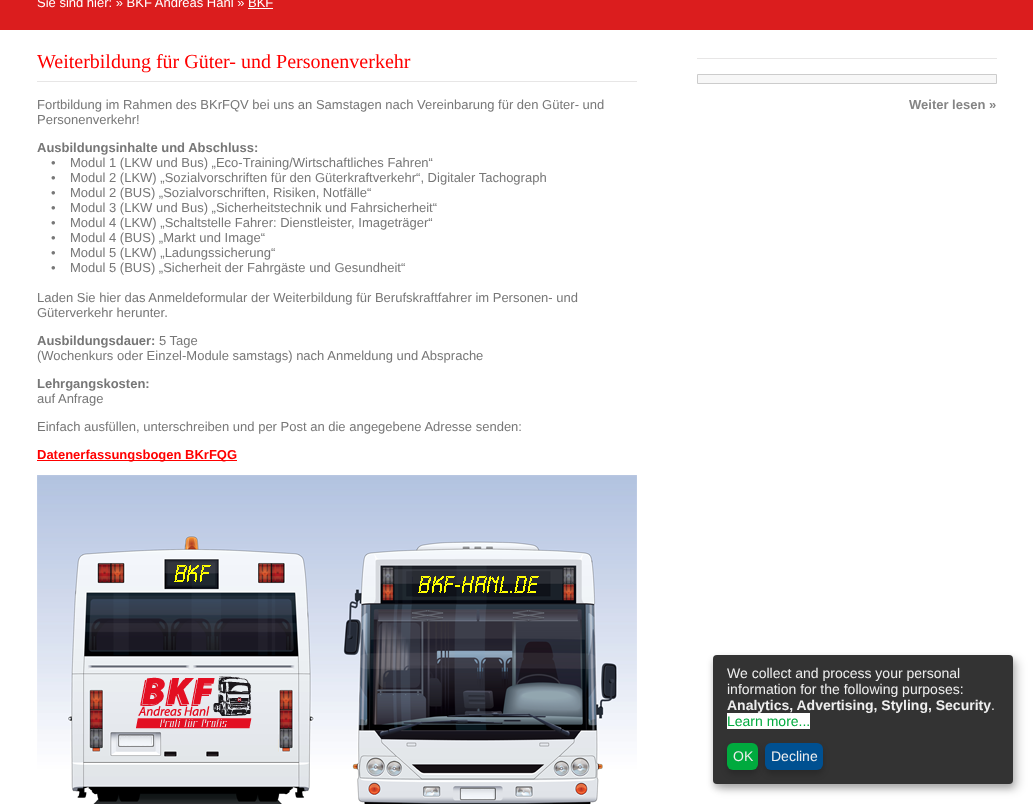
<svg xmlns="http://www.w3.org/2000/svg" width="1033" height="804">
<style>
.a{font:13px Liberation Sans;fill:#fff}
.b{font:20px Liberation Serif;fill:#f00}
.c{font:13px Liberation Sans;fill:#777}
.d{font:bold 13px Liberation Sans;fill:#777}
.e{font:bold 13px Liberation Sans;fill:#f00}
.f{font:bold 13px Liberation Sans;fill:#858585}
.g{font:14px Liberation Sans;fill:#eee}
.h{font:bold 14px Liberation Sans;fill:#eee}
.i{font:14px Liberation Sans;fill:#00aa3e}
</style>
<rect width="100%" height="100%" fill="#fff"/>
<path fill="#db1d1e" d="M0 0h1033v30H0z"/>
<path fill="#fff" d="M248 8h25v1H248z"/>
<path fill="#e7e6e6" d="M37 81h600v1H37z"/>
<path fill="#f00" d="M37 460h200v1H37z"/>
<image href="1.png" x="37" y="475" width="600" height="329"/>
<path fill="#e7e6e6" d="M697 58h300v1H697z"/>
<path fill="#f7f7f7" stroke="#ccc" d="M697.5 74.5h299v9H697.5z"/>
<rect fill="#00000030" filter="blur(5px)" x="718" y="660" width="300" height="129" rx="4"/>
<rect fill="#00000033" filter="blur(3px)" x="713" y="659" width="300" height="129" rx="4"/>
<rect fill="#333" x="713" y="655" width="300" height="129" rx="4"/>
<path fill="#fff" d="M727 713h83v16H727z"/>
<rect fill="#00000033" filter="blur(3px)" x="727" y="747" width="31" height="27" rx="6"/>
<rect fill="#00aa3e" x="727" y="743" width="31" height="27" rx="6"/>
<rect fill="#00000033" filter="blur(3px)" x="765" y="747" width="58" height="27" rx="6"/>
<rect fill="#005091" x="765" y="743" width="58" height="27" rx="6"/>
<text class="a" x="37" y="7">Sie sind hier: » BKF Andreas Hanl » BKF</text>
<text class="b" x="37" y="68">Weiterbildung für Güter- und Personenverkehr</text>
<text class="c" x="37" y="109">Fortbildung im Rahmen des BKrFQV bei uns an Samstagen nach Vereinbarung für den Güter- und</text>
<text class="c" x="37" y="124">Personenverkehr!</text>
<text class="d" x="37" y="152">Ausbildungsinhalte und Abschluss:</text>
<text class="c" xml:space="preserve" x="51" y="167">•    Modul 1 (LKW und Bus) „Eco-Training/Wirtschaftliches Fahren“</text>
<text class="c" xml:space="preserve" x="51" y="182">•    Modul 2 (LKW) „Sozialvorschriften für den Güterkraftverkehr“, Digitaler Tachograph</text>
<text class="c" xml:space="preserve" x="51" y="197">•    Modul 2 (BUS) „Sozialvorschriften, Risiken, Notfälle“</text>
<text class="c" xml:space="preserve" x="51" y="212">•    Modul 3 (LKW und Bus) „Sicherheitstechnik und Fahrsicherheit“</text>
<text class="c" xml:space="preserve" x="51" y="227">•    Modul 4 (LKW) „Schaltstelle Fahrer: Dienstleister, Imageträger“</text>
<text class="c" xml:space="preserve" x="51" y="242">•    Modul 4 (BUS) „Markt und Image“</text>
<text class="c" xml:space="preserve" x="51" y="257">•    Modul 5 (LKW) „Ladungssicherung“</text>
<text class="c" xml:space="preserve" x="51" y="272">•    Modul 5 (BUS) „Sicherheit der Fahrgäste und Gesundheit“</text>
<text class="c" x="37" y="302">Laden Sie hier das Anmeldeformular der Weiterbildung für Berufskraftfahrer im Personen- und</text>
<text class="c" x="37" y="317">Güterverkehr herunter.</text>
<text class="d" x="37" y="345">Ausbildungsdauer:</text>
<text class="c" x="159" y="345">5 Tage</text>
<text class="c" x="37" y="360">(Wochenkurs oder Einzel-Module samstags) nach Anmeldung und Absprache</text>
<text class="d" x="37" y="388">Lehrgangskosten:</text>
<text class="c" x="37" y="403">auf Anfrage</text>
<text class="c" x="37" y="431">Einfach ausfüllen, unterschreiben und per Post an die angegebene Adresse senden:</text>
<text class="e" x="37" y="459">Datenerfassungsbogen BKrFQG</text>
<text class="f" x="909" y="109">Weiter lesen »</text>
<text class="g" x="727" y="678">We collect and process your personal</text>
<text class="g" x="727" y="694">information for the following purposes:</text>
<text class="h" x="727" y="710">Analytics, Advertising, Styling, Security</text>
<text class="g" x="991" y="710">.</text>
<text class="i" x="727" y="726">Learn more...</text>
<text class="g" x="733" y="761">OK</text>
<text class="g" x="771" y="761">Decline</text>
</svg>
